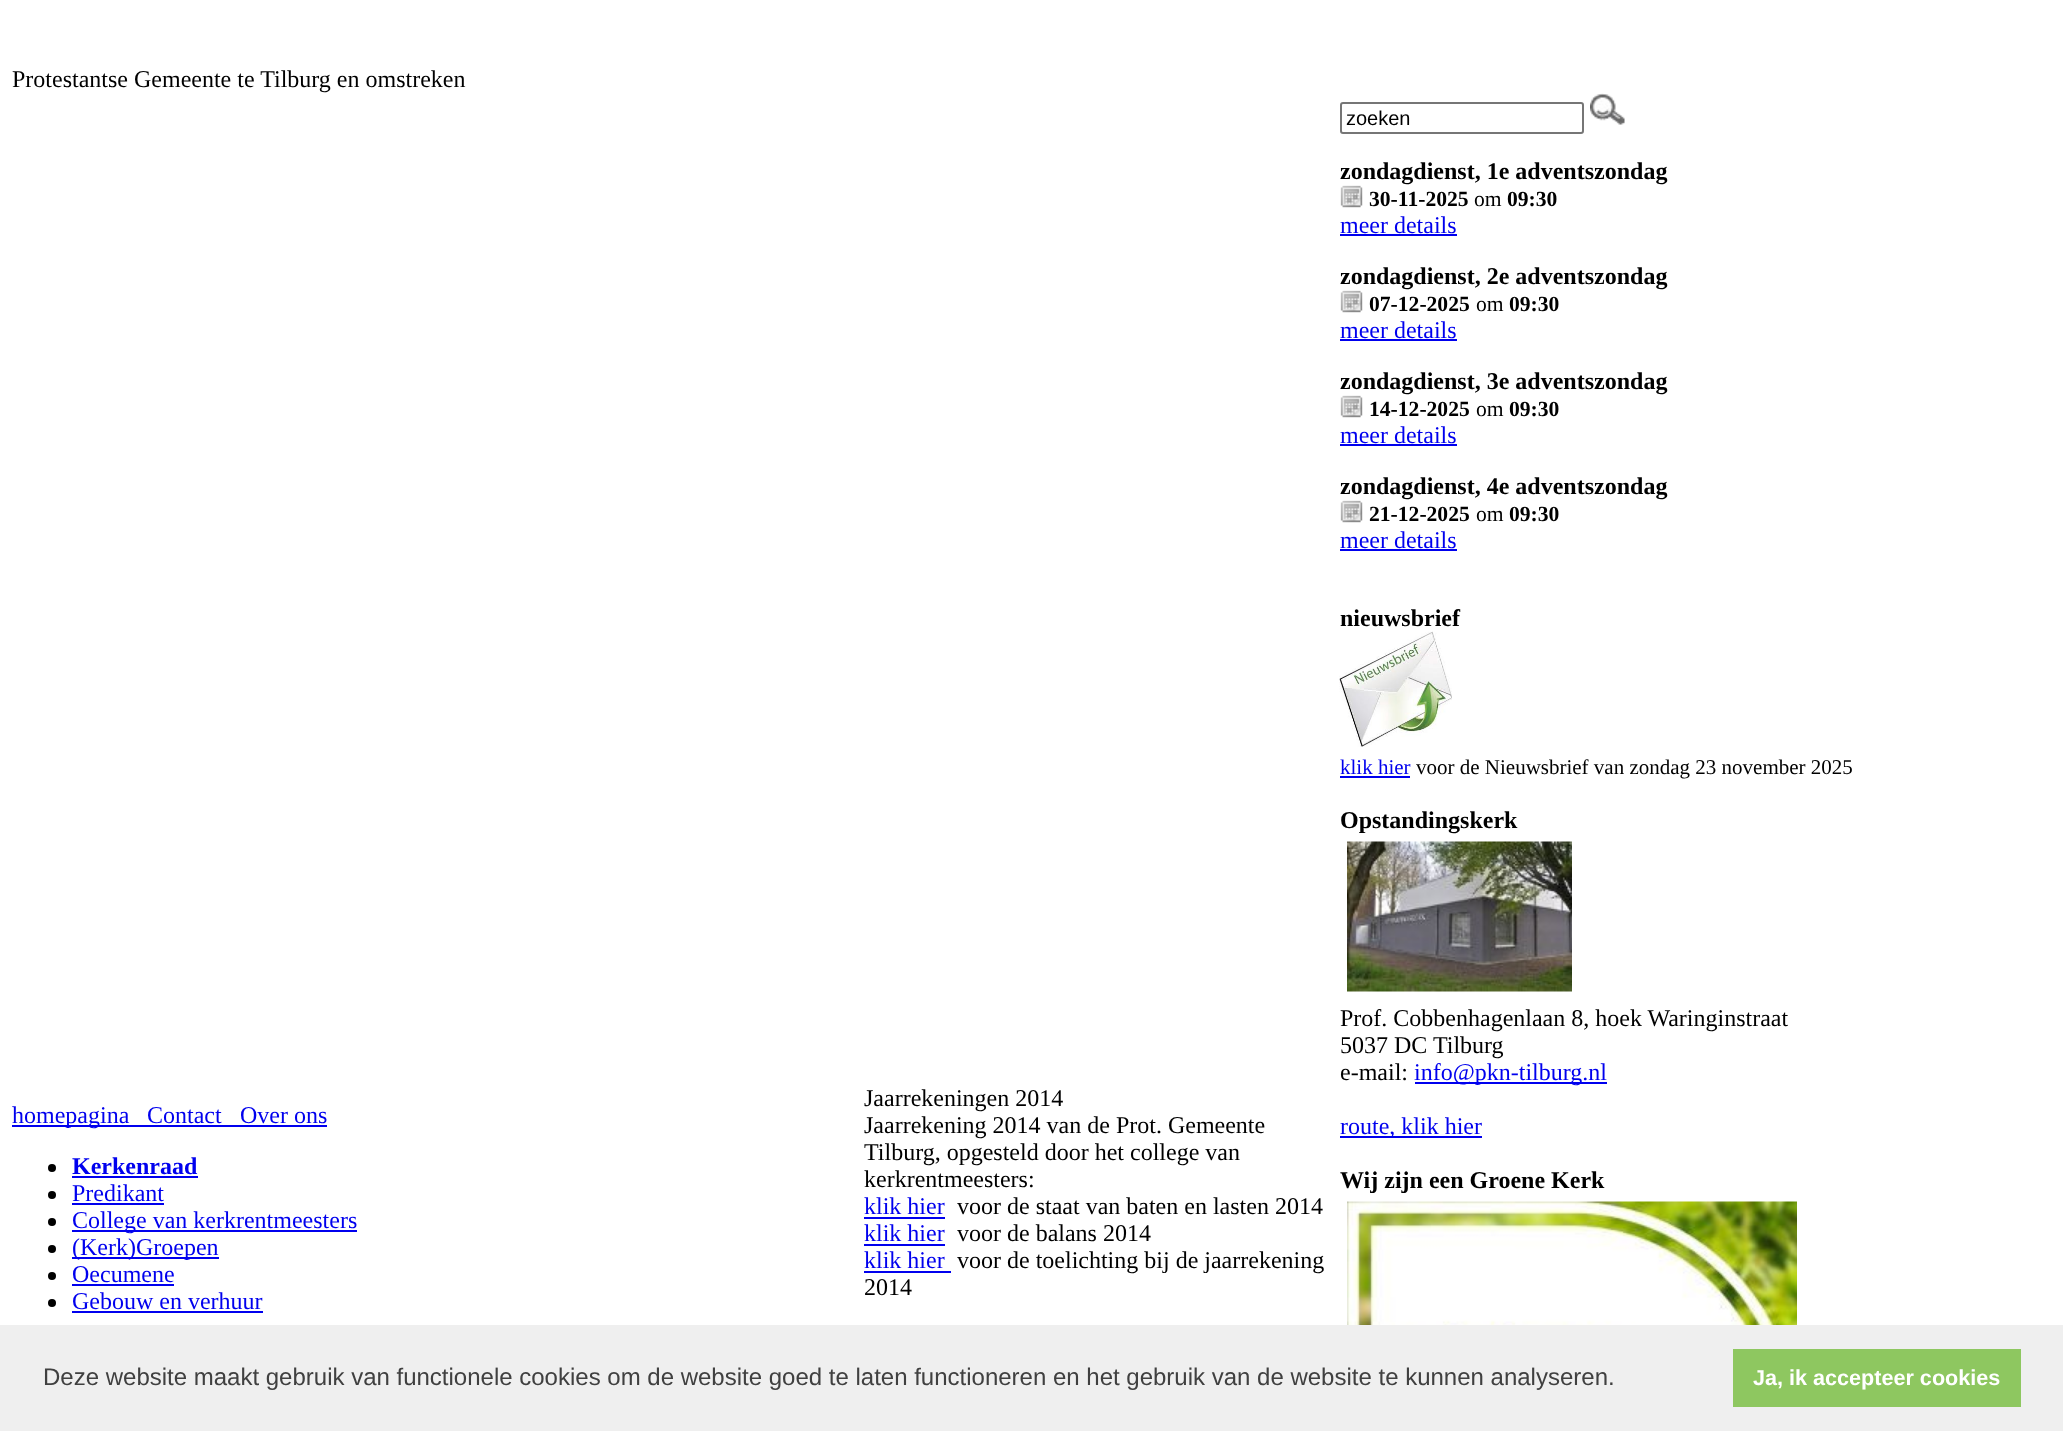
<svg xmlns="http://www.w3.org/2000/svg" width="2063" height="1431">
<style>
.a{font:24px Liberation Serif;fill:#000}
.b{font:24px Liberation Serif;fill:#00e}
.c{font:bold 24px Liberation Serif;fill:#00e}
.d{font:20px Liberation Sans;fill:#000}
.e{font:bold 24px Liberation Serif;fill:#000}
.f{font:bold 21.6px Liberation Serif;fill:#000}
.g{font:21.6px Liberation Serif;fill:#000}
.h{font:21px Liberation Serif;fill:#00e}
.i{font:21px Liberation Serif;fill:#000}
.j{font:24px Liberation Sans;fill:#404040}
.k{font:bold 21.6px Liberation Sans;fill:#fff}
</style>
<rect width="100%" height="100%" fill="#fff"/>
<path fill="#00e" d="M12 1125h315v2H12z"/>
<circle fill="#000" cx="52" cy="1168" r="4"/>
<path fill="#00e" d="M72 1176h126v2H72z"/>
<circle fill="#000" cx="52" cy="1195" r="4"/>
<path fill="#00e" d="M72 1203h92v2H72z"/>
<circle fill="#000" cx="52" cy="1222" r="4"/>
<path fill="#00e" d="M72 1230h285v2H72z"/>
<circle fill="#000" cx="52" cy="1249" r="4"/>
<path fill="#00e" d="M72 1257h147v2H72z"/>
<circle fill="#000" cx="52" cy="1276" r="4"/>
<path fill="#00e" d="M72 1284h102v2H72z"/>
<circle fill="#000" cx="52" cy="1303" r="4"/>
<path fill="#00e" d="M72 1311h191v2H72z"/>
<path fill="#00e" d="M864 1217h81v2H864z"/>
<path fill="#00e" d="M864 1244h81v2H864z"/>
<path fill="#00e" d="M864 1271h87v2H864z"/>
<rect fill="none" stroke="#767676" stroke-width="2" x="1341" y="103" width="242" height="30" rx="2"/>
<image href="1.png" x="1590" y="93" width="35" height="32"/>
<image href="2.png" x="1340" y="185" width="23" height="23"/>
<path fill="#00e" d="M1340 234h117v2H1340z"/>
<image href="2.png" x="1340" y="290" width="23" height="23"/>
<path fill="#00e" d="M1340 339h117v2H1340z"/>
<image href="2.png" x="1340" y="395" width="23" height="23"/>
<path fill="#00e" d="M1340 444h117v2H1340z"/>
<image href="2.png" x="1340" y="500" width="23" height="23"/>
<path fill="#00e" d="M1340 549h117v2H1340z"/>
<image href="3.png" x="1339" y="631" width="113" height="116"/>
<path fill="#00e" d="M1340 776h70v2H1340z"/>
<image href="4.png" x="1347" y="841" width="225" height="151"/>
<path fill="#00e" d="M1415 1082h192v2H1415z"/>
<path fill="#00e" d="M1340 1136h142v2H1340z"/>
<image href="5.png" x="1347" y="1201" width="450" height="124"/>
<path fill="#efefef" d="M0 1325h2063v106H0z"/>
<path fill="#8ec760" d="M1733 1349h288v58H1733z"/>
<text class="a" x="12" y="87">Protestantse Gemeente te Tilburg en omstreken</text>
<text class="b" x="12" y="1123">homepagina</text>
<text class="b" x="147" y="1123">Contact</text>
<text class="b" x="240" y="1123">Over ons</text>
<text class="c" x="72" y="1174">Kerkenraad</text>
<text class="b" x="72" y="1201">Predikant</text>
<text class="b" x="72" y="1228">College van kerkrentmeesters</text>
<text class="b" x="72" y="1255">(Kerk)Groepen</text>
<text class="b" x="72" y="1282">Oecumene</text>
<text class="b" x="72" y="1309">Gebouw en verhuur</text>
<text class="a" x="864" y="1106">Jaarrekeningen 2014</text>
<text class="a" x="864" y="1133">Jaarrekening 2014 van de Prot. Gemeente</text>
<text class="a" x="864" y="1160">Tilburg, opgesteld door het college van</text>
<text class="a" x="864" y="1187">kerkrentmeesters:</text>
<text class="b" x="864" y="1214">klik hier</text>
<text class="a" x="957" y="1214">voor de staat van baten en lasten 2014</text>
<text class="b" x="864" y="1241">klik hier</text>
<text class="a" x="957" y="1241">voor de balans 2014</text>
<text class="b" x="864" y="1268">klik hier</text>
<text class="a" x="957" y="1268">voor de toelichting bij de jaarrekening</text>
<text class="a" x="864" y="1295">2014</text>
<text class="d" x="1346" y="125">zoeken</text>
<text class="e" x="1340" y="179">zondagdienst, 1e adventszondag</text>
<text class="f" x="1369" y="206">30-11-2025</text>
<text class="g" x="1474" y="206">om</text>
<text class="f" x="1507" y="206">09:30</text>
<text class="b" x="1340" y="233">meer details</text>
<text class="e" x="1340" y="284">zondagdienst, 2e adventszondag</text>
<text class="f" x="1369" y="311">07-12-2025</text>
<text class="g" x="1476" y="311">om</text>
<text class="f" x="1509" y="311">09:30</text>
<text class="b" x="1340" y="338">meer details</text>
<text class="e" x="1340" y="389">zondagdienst, 3e adventszondag</text>
<text class="f" x="1369" y="416">14-12-2025</text>
<text class="g" x="1476" y="416">om</text>
<text class="f" x="1509" y="416">09:30</text>
<text class="b" x="1340" y="443">meer details</text>
<text class="e" x="1340" y="494">zondagdienst, 4e adventszondag</text>
<text class="f" x="1369" y="521">21-12-2025</text>
<text class="g" x="1476" y="521">om</text>
<text class="f" x="1509" y="521">09:30</text>
<text class="b" x="1340" y="548">meer details</text>
<text class="e" x="1340" y="626">nieuwsbrief</text>
<text class="h" x="1340" y="774">klik hier</text>
<text class="i" x="1416" y="774">voor de Nieuwsbrief van zondag 23 november 2025</text>
<text class="e" x="1340" y="828">Opstandingskerk</text>
<text class="a" x="1340" y="1026">Prof. Cobbenhagenlaan 8, hoek Waringinstraat</text>
<text class="a" x="1340" y="1053">5037 DC Tilburg</text>
<text class="a" x="1340" y="1080">e-mail:</text>
<text class="b" x="1414" y="1080">info@pkn-tilburg.nl</text>
<text class="b" x="1340" y="1134">route, klik hier</text>
<text class="e" x="1340" y="1188">Wij zijn een Groene Kerk</text>
<text class="j" x="43" y="1385">Deze website maakt gebruik van functionele cookies om de website goed te laten functioneren en het gebruik van de website te kunnen analyseren.</text>
<text class="k" x="1753" y="1385">Ja, ik accepteer cookies</text>
</svg>
